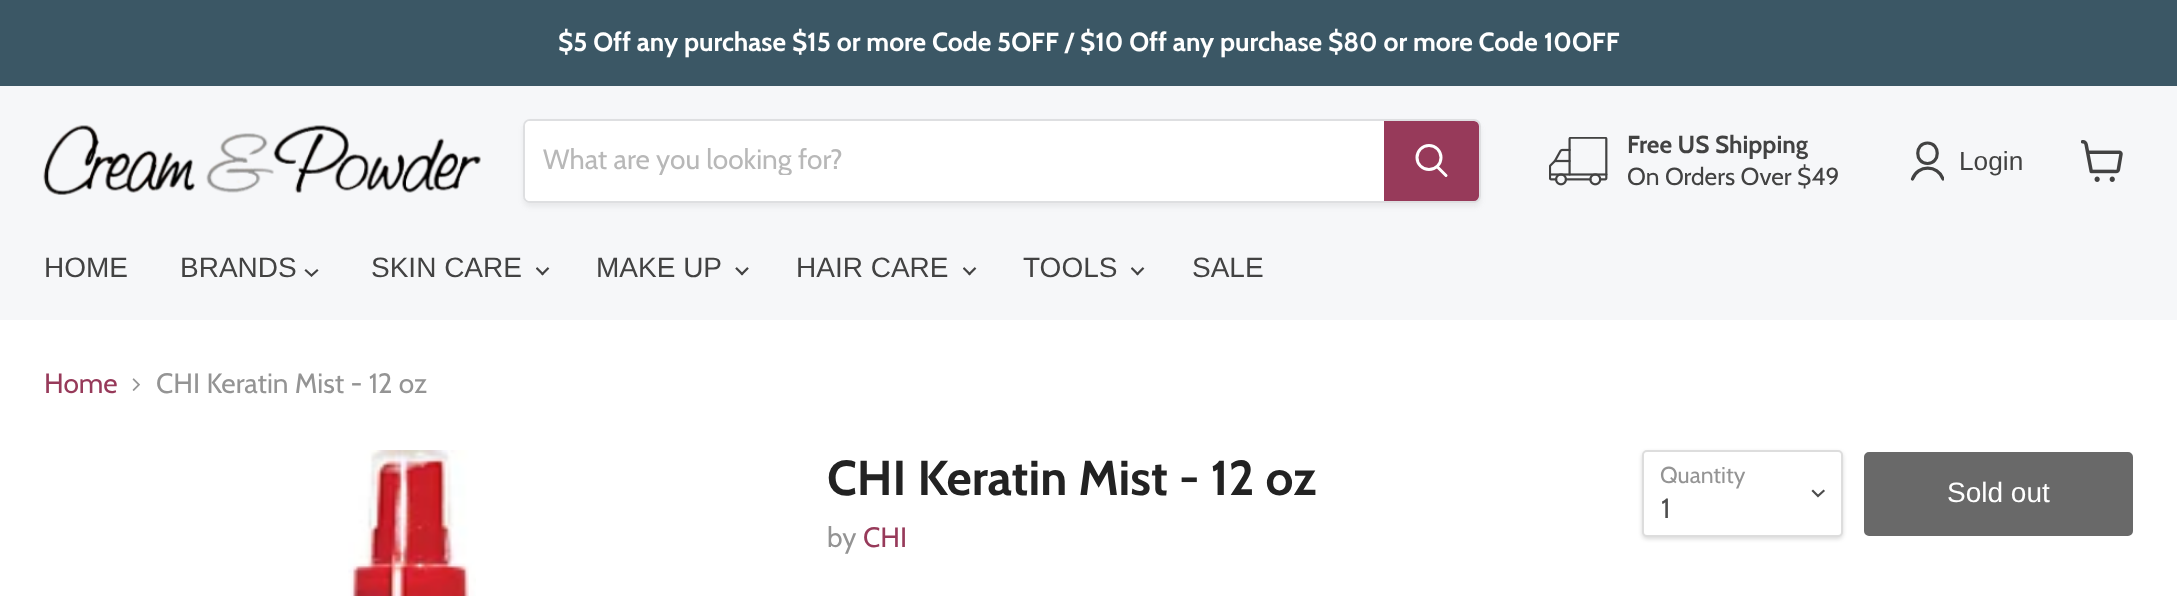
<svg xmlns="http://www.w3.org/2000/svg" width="2177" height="596">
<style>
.a{font:bold 26.25px Cabin;fill:#fff}
.b{font:28px Cabin;fill:#b8b8b8}
.c{font:bold 24.5px Cabin;fill:#424242}
.d{font:24.5px Cabin;fill:#424242}
.e{font:26.25px Liberation Sans;fill:#424242}
.f{font:28px Liberation Sans;fill:#424242}
.g{font:28px Cabin;fill:#973a5a}
.h{font:28px Cabin;fill:#949494}
.i{font:bold 49px Cabin;fill:#222}
.j{font:23px Cabin;fill:#949494}
.k{font:28px Cabin;fill:#4d4d4d}
.l{font:28px Liberation Sans;fill:#fff}
</style>
<defs>
<clipPath id="clip1"><path d="M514 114h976v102h-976zm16 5h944c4 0 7 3 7 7v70c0 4-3 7-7 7h-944c-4 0-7-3-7-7v-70c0-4 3-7 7-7z" clip-rule="evenodd"/></clipPath>
<clipPath id="clip2"><path d="M1909 140h35v42H1909z"/></clipPath>
<clipPath id="clip3"><path d="M543 142h824v33H543z"/></clipPath>
</defs>
<rect width="100%" height="100%" fill="#fff"/>
<path fill="#3b5765" d="M0 0h2177v86H0z"/>
<path fill="#f6f7f9" d="M0 86h2177v234H0z"/>
<image href="1.png" x="43" y="125" width="438" height="70"/>
<g clip-path="url(#clip1)">
<rect fill="#8080801c" filter="blur(2.5px)" x="523" y="123" width="958" height="84" rx="7"/>
</g>
<rect fill="none" stroke="#80808033" stroke-width="2" x="524" y="120" width="956" height="82" rx="6"/>
<path fill="#fff" d="M530 121h854v80h-854c-3 0-5-2-5-5v-70c0-3 2-5 5-5z"/>
<path fill="#973a5a" stroke="#973a5a" stroke-width="2" d="M1385 122h89c2 0 4 2 4 4v70c0 2-2 4-4 4h-89z"/>
<path fill="none" stroke="#fff" stroke-width="3" stroke-linecap="round" d="M1446 175.5l-8.5-8.5"/>
<circle fill="none" stroke="#fff" stroke-width="3" cx="1429" cy="157.5" r="12"/>
<image href="2.png" x="1549" y="137" width="59" height="49"/>
<path fill="none" stroke="#424242" stroke-width="3.2" stroke-linecap="round" stroke-linejoin="round" d="M1927.5 163.5c13 0 13-20.5 0-20.5c-13 0-13 20.5 0 20.5z"/>
<g clip-path="url(#clip2)">
<path fill="none" stroke="#424242" stroke-width="3.2" stroke-linecap="round" stroke-linejoin="round" d="M1943 179c-5-14.5-25.5-14.5-30.5 0"/>
</g>
<image href="3.png" x="2081" y="140" width="42" height="42"/>
<path fill="none" stroke="#424242" stroke-width="2.2" stroke-linecap="square" d="M311.5 275.5l5.5-5m-5.5 5l-5.5-5"/>
<image href="4.png" x="536" y="267" width="14" height="9"/>
<image href="5.png" x="735" y="267" width="14" height="9"/>
<image href="4.png" x="963" y="267" width="14" height="9"/>
<image href="4.png" x="1131" y="267" width="14" height="9"/>
<image href="6.png" x="132" y="378" width="8" height="13"/>
<image href="7.png" x="348" y="450" width="128" height="146"/>
<rect fill="#00000026" filter="blur(2px)" x="1642" y="452" width="201" height="87" rx="5"/>
<rect fill="#fff" stroke="#ddd" stroke-width="2" x="1643" y="451" width="199" height="85" rx="4"/>
<path fill="none" stroke="#4d4d4d" stroke-width="2.2" stroke-linecap="square" d="M1818 496l5.5-5m-5.5 5l-5-5"/>
<rect fill="#696969" stroke="#696969" stroke-width="2" x="1865" y="453" width="267" height="82" rx="4"/>
<text class="a" x="558" y="51">$5 Off any purchase $15 or more Code 5OFF / $10 Off any purchase $80 or more Code 10OFF</text>
<g clip-path="url(#clip3)">
<text class="b" x="543" y="169">What are you looking for?</text>
</g>
<text class="c" x="1627" y="153">Free US Shipping</text>
<text class="d" x="1627" y="185">On Orders Over $49</text>
<text class="e" x="1959" y="170">Login</text>
<text class="f" x="44" y="277">HOME</text>
<text class="f" x="180" y="277">BRANDS</text>
<text class="f" x="371" y="277">SKIN CARE</text>
<text class="f" x="596" y="277">MAKE UP</text>
<text class="f" x="796" y="277">HAIR CARE</text>
<text class="f" x="1023" y="277">TOOLS</text>
<text class="f" x="1192" y="277">SALE</text>
<text class="g" x="44" y="393">Home</text>
<text class="h" x="156" y="393">CHI Keratin Mist - 12 oz</text>
<text class="i" x="827" y="495">CHI Keratin Mist - 12 oz</text>
<text class="h" x="827" y="547">by</text>
<text class="g" x="863" y="547">CHI</text>
<text class="j" x="1660" y="483">Quantity</text>
<text class="k" x="1661" y="518">1</text>
<text class="l" x="1947" y="502">Sold out</text>
</svg>
